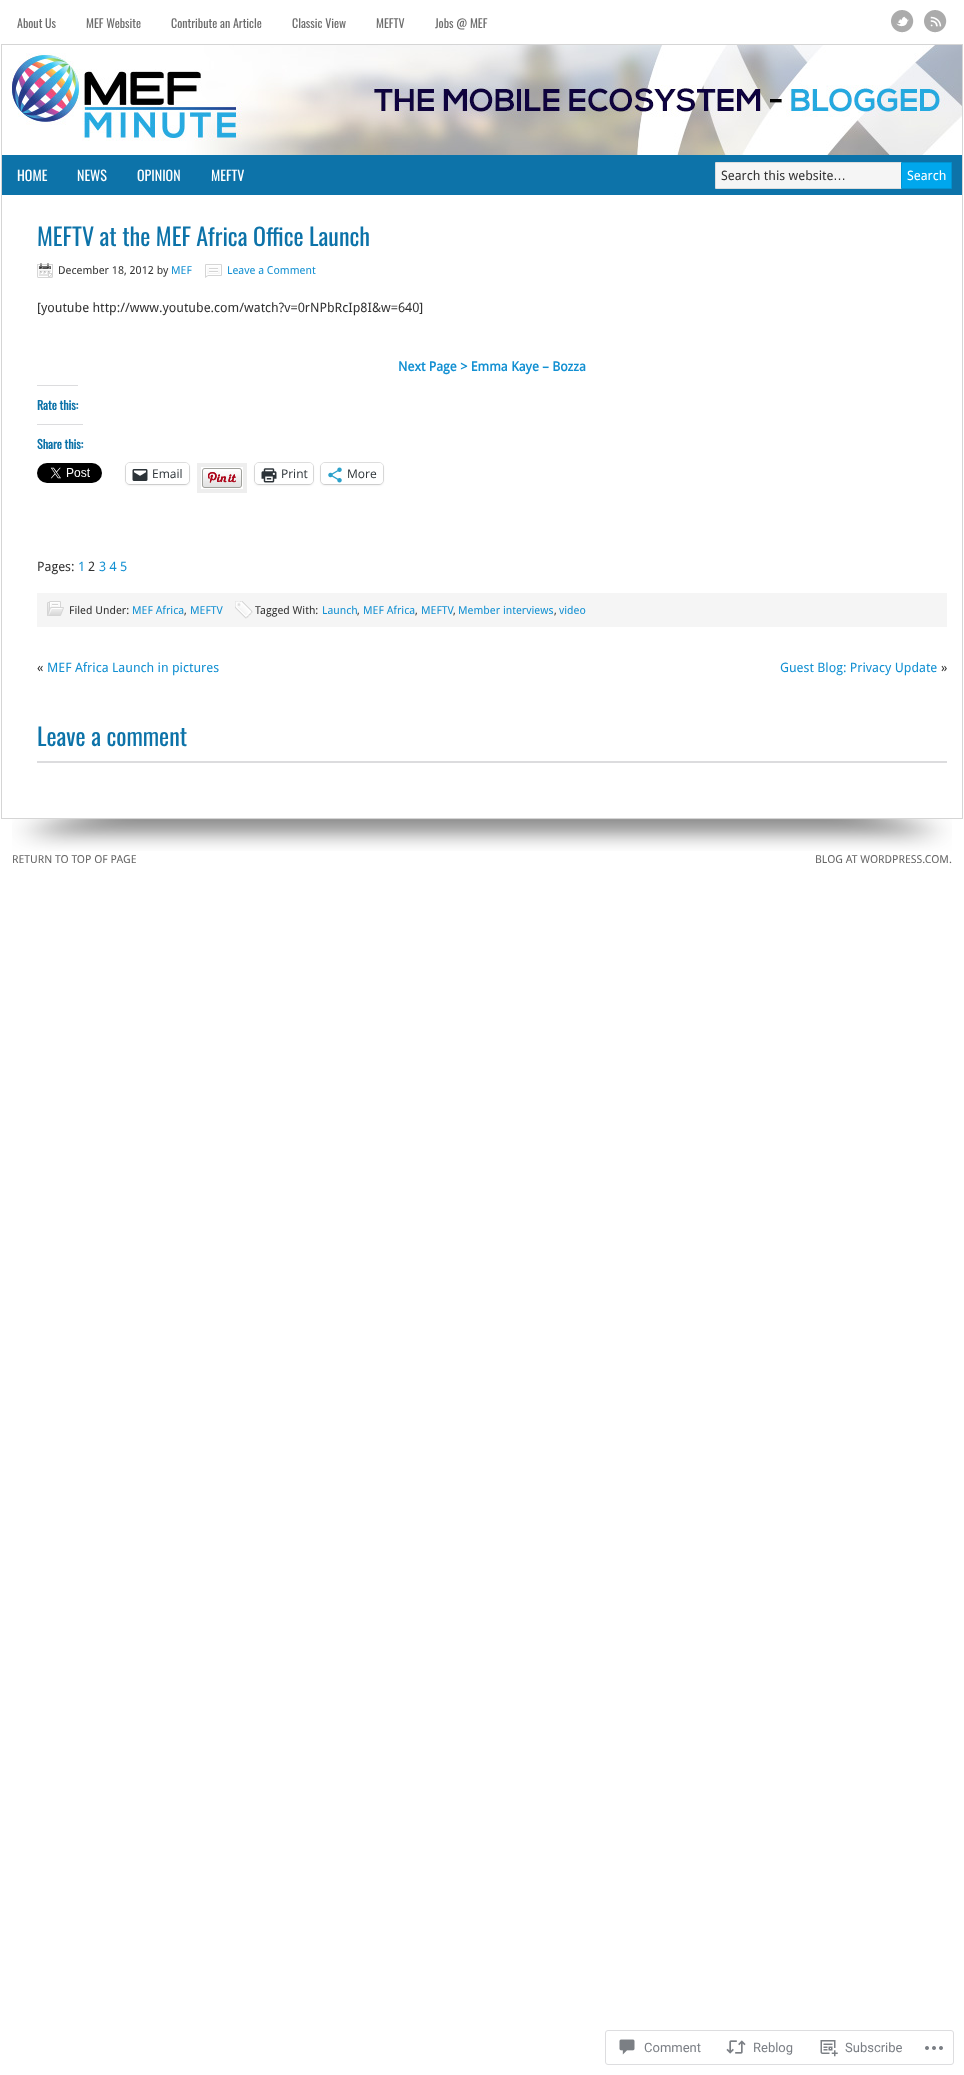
<svg xmlns="http://www.w3.org/2000/svg" width="964" height="2075">
<style>
.a{font:12px Oswald;fill:#6d6d6d}
.b{font:14px Oswald;fill:#fff}
.c{font:13px Droid Sans;fill:#333}
.d{font:13px Liberation Sans;fill:#333}
.e{font:13px Droid Sans;fill:#fff}
.f{font:24px Oswald;fill:#0d73a9}
.g{font:11px Droid Sans;fill:#333}
.h{font:11px Droid Sans;fill:#1390d2}
.i{font:bold 13px Droid Sans;fill:#1390d2}
.j{font:bold 12px Oswald;fill:#0d73a9}
.k{font:12px Open Sans;fill:#2c3338}
.l{font:13px Droid Sans;fill:#1390d2}
.m{font:11px Droid Sans;fill:#666}
.n{font:13px Roboto;fill:#7b7f85}
</style>
<rect width="100%" height="100%" fill="#fff"/>
<image href="1.png" x="891" y="10" width="23" height="23"/>
<image href="2.png" x="924" y="10" width="23" height="23"/>
<image href="3.png" x="10" y="45" width="952" height="110"/>
<path fill="#d5d5d5" d="M1 44h962v1H1z"/>
<path fill="#d5d5d5" d="M962 44h1v775H962z"/>
<path fill="#d5d5d5" d="M1 44h1v151H1z"/>
<path fill="#0d73a9" d="M2 155h960v40H2z"/>
<path fill="#f5f5f5" d="M716 163h185v25H716z"/>
<path fill="none" stroke="#ddd" d="M715.5 162.5h191v26H715.5z"/>
<path fill="#00a7ed" stroke="#0094d2" d="M901.5 162.5h50v26H901.5z"/>
<path fill="#d5d5d5" d="M1 818h962v1H1z"/>
<path fill="#d5d5d5" d="M1 195h1v624H1z"/>
<image href="4.png" x="37" y="263" width="16" height="15"/>
<image href="5.png" x="205" y="264" width="17" height="14"/>
<path fill="#dcdcde" d="M37 385h41v1H37z"/>
<path fill="#dcdcde" d="M37 424h46v1H37z"/>
<image href="6.png" x="37" y="463" width="65" height="20"/>
<rect fill="none" stroke="#e0e0e0" x="125.5" y="462.5" width="64" height="22" rx="4.5"/>
<rect fill="#0000001f" filter="blur(1px)" x="126" y="464" width="63" height="21" rx="4"/>
<rect fill="#fff" x="126" y="463" width="63" height="21" rx="4"/>
<image href="7.png" x="132" y="469" width="16" height="12"/>
<path fill="none" stroke="#eee" stroke-width="4" d="M199 465h46v26H199z"/>
<image href="8.png" x="202" y="468" width="40" height="20"/>
<rect fill="none" stroke="#e0e0e0" x="254.5" y="462.5" width="59" height="22" rx="4.5"/>
<rect fill="#0000001f" filter="blur(1px)" x="255" y="464" width="58" height="21" rx="4"/>
<rect fill="#fff" x="255" y="463" width="58" height="21" rx="4"/>
<image href="9.png" x="261" y="468" width="16" height="15"/>
<rect fill="none" stroke="#e0e0e0" x="320.5" y="462.5" width="63" height="22" rx="4.5"/>
<rect fill="#0000001f" filter="blur(1px)" x="321" y="464" width="62" height="21" rx="4"/>
<rect fill="#fff" x="321" y="463" width="62" height="21" rx="4"/>
<image href="10.png" x="328" y="467" width="14" height="16"/>
<path fill="#f5f5f5" d="M37 593h910v34H37z"/>
<image href="11.png" x="47" y="601" width="17" height="15"/>
<image href="12.png" x="235" y="601" width="18" height="18"/>
<path fill="#dcdcde" d="M37 761h910v2H37z"/>
<image href="13.png" x="12" y="819" width="940" height="32"/>
<rect fill="none" stroke="#dddddf" x="605.5" y="2030.5" width="348" height="34" rx="2.5"/>
<image href="14.png" x="619" y="2039" width="16" height="16"/>
<image href="15.png" x="726" y="2040" width="20" height="14"/>
<image href="16.png" x="820" y="2040" width="18" height="17"/>
<image href="17.png" x="925" y="2046" width="18" height="4"/>
<text class="a" x="17" y="28">About Us</text>
<text class="a" x="86" y="28">MEF Website</text>
<text class="a" x="171" y="28">Contribute an Article</text>
<text class="a" x="292" y="28">Classic View</text>
<text class="a" x="376" y="28">MEFTV</text>
<text class="a" x="435" y="28">Jobs @ MEF</text>
<text class="b" x="17" y="181">HOME</text>
<text class="b" x="77" y="181">NEWS</text>
<text class="b" x="137" y="181">OPINION</text>
<text class="b" x="211" y="181">MEFTV</text>
<text class="c" x="721" y="180">Search this website</text>
<text class="d" x="833" y="180">…</text>
<text class="e" x="907" y="180">Search</text>
<text class="f" x="37" y="246">MEFTV at the MEF Africa Office Launch</text>
<text class="g" x="58" y="274">December 18, 2012 by</text>
<text class="h" x="171" y="274">MEF</text>
<text class="h" x="227" y="274">Leave a Comment</text>
<text class="c" x="37" y="312">[youtube http://www.youtube.com/watch?v=0rNPbRcIp8I&amp;w=640]</text>
<text class="i" x="398" y="371">Next Page &gt; Emma Kaye – Bozza</text>
<text class="j" x="37" y="410">Rate this:</text>
<text class="j" x="37" y="449">Share this:</text>
<text class="k" x="152" y="478">Email</text>
<text class="k" x="281" y="478">Print</text>
<text class="k" x="347" y="478">More</text>
<text class="c" x="37" y="571">Pages:</text>
<text class="l" x="78" y="571">1</text>
<text class="c" x="88" y="571">2</text>
<text class="l" x="99" y="571">3 4 5</text>
<text class="g" x="69" y="614">Filed Under:</text>
<text class="h" x="132" y="614">MEF Africa</text>
<text class="g" x="184" y="614">,</text>
<text class="h" x="190" y="614">MEFTV</text>
<text class="g" x="255" y="614">Tagged With:</text>
<text class="h" x="322" y="614">Launch</text>
<text class="g" x="357" y="614">,</text>
<text class="h" x="363" y="614">MEF Africa</text>
<text class="g" x="415" y="614">,</text>
<text class="h" x="421" y="614">MEFTV</text>
<text class="h" x="458" y="614">Member interviews</text>
<text class="h" x="559" y="614">video</text>
<text class="g" x="453" y="614">,</text>
<text class="g" x="554" y="614">,</text>
<text class="c" x="37" y="672">«</text>
<text class="l" x="47" y="672">MEF Africa Launch in pictures</text>
<text class="l" x="780" y="672">Guest Blog: Privacy Update</text>
<text class="c" x="941" y="672">»</text>
<text class="f" x="37" y="746">Leave a comment</text>
<text class="m" x="12" y="863">RETURN TO TOP OF PAGE</text>
<text class="m" x="815" y="863">BLOG AT WORDPRESS.COM.</text>
<text class="n" x="644" y="2052">Comment</text>
<text class="n" x="753" y="2052">Reblog</text>
<text class="n" x="845" y="2052">Subscribe</text>
</svg>
